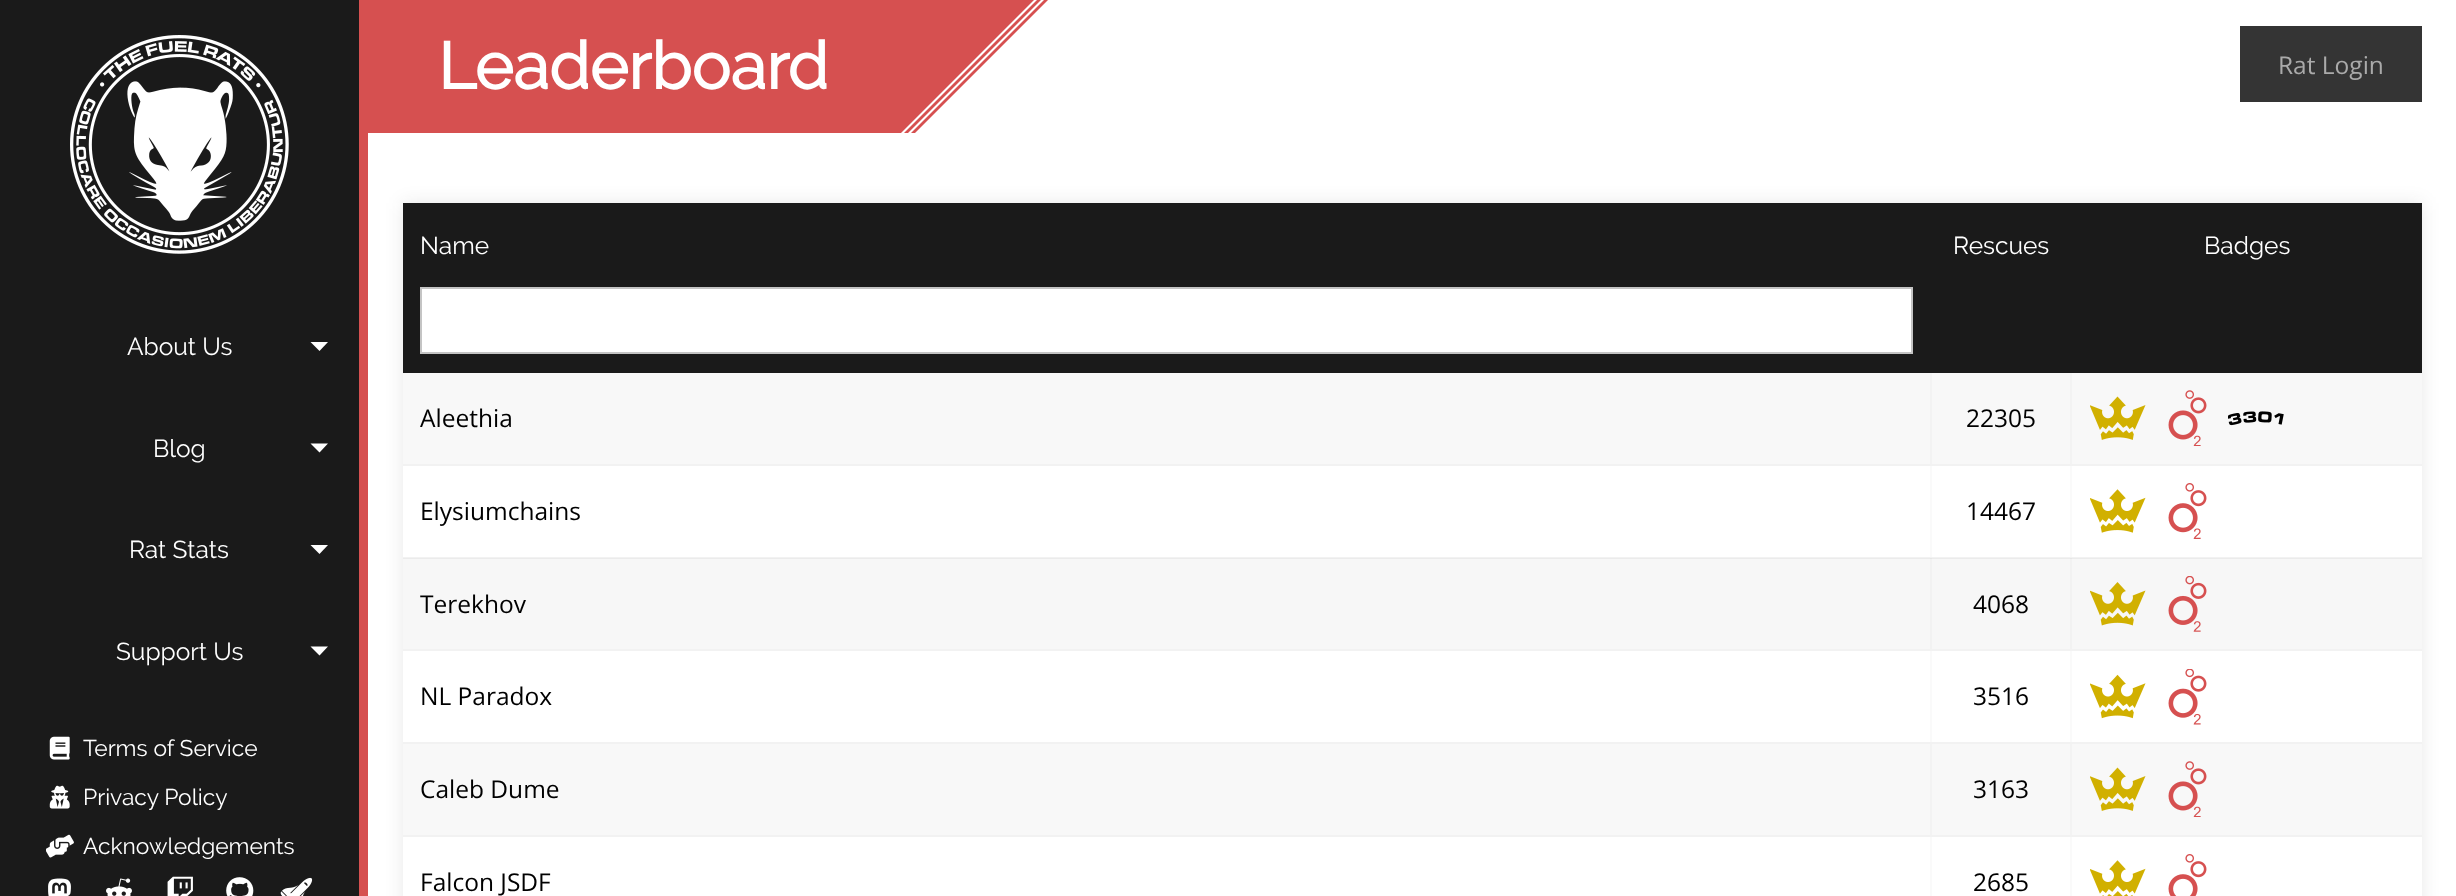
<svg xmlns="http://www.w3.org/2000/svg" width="2456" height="896">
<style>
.a{font:bold 65.5px Raleway;fill:#fff}
.b{font:24.5px Raleway;fill:#fff}
.c{font:24.5px Open Sans;fill:#000}
.d{font:24.5px Open Sans;fill:#aaa}
.e{font:22.75px Raleway;fill:#fff}
</style>
<defs>
<clipPath id="clip1"><path d="M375 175h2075v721h-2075zm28 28h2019v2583h-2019z" clip-rule="evenodd"/></clipPath>
</defs>
<rect width="100%" height="100%" fill="#fff"/>
<path fill="#f7f7f7" d="M403 559h2019v90H403z"/>
<path fill="#f2f2f2" d="M2070 558h2v91H2070z"/>
<path fill="#f2f2f2" d="M1930 558h2v91H1930z"/>
<path fill="#d65050" d="M368 0h522v133H368z"/>
<path fill="#d65050" d="M1044 0l-133 133h4l133-133z"/>
<path fill="#d65050" d="M1037 0h4l-133 133h-4z"/>
<path fill="#d65050" d="M890 0l-133 133h144l133-133z"/>
<g clip-path="url(#clip1)">
<path fill="#1a1a1a1a" filter="blur(9px)" d="M403 203h2019v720H403z"/>
</g>
<path fill="#1a1a1a" d="M403 203h2019v170H403z"/>
<path fill="#fff" stroke="#c4c4c4" stroke-width="2" d="M421 288h1491v65H421z"/>
<path fill="#f2f2f2" d="M403 464h2019v2H403z"/>
<path fill="#f8f8f8" d="M403 373h2019v91H403z"/>
<path fill="#f3f3f3" d="M1930 373h2v91H1930z"/>
<path fill="#f3f3f3" d="M2070 373h2v91H2070z"/>
<image href="1.png" x="2090" y="396" width="56" height="44"/>
<image href="2.png" x="2168" y="390" width="39" height="56"/>
<image href="3.png" x="2228" y="411" width="56" height="15"/>
<path fill="#f2f2f2" d="M403 557h2019v1H403z"/>
<path fill="#ebebeb" d="M403 558h2019v1H403z"/>
<path fill="#e6e6e6" d="M2070 558h2v1H2070z"/>
<path fill="#e6e6e6" d="M1930 558h2v1H1930z"/>
<path fill="#fafafa" d="M1930 466h2v91H1930z"/>
<path fill="#fafafa" d="M2070 466h2v91H2070z"/>
<image href="4.png" x="2090" y="489" width="56" height="44"/>
<image href="5.png" x="2168" y="483" width="39" height="56"/>
<path fill="#f2f2f2" d="M403 649h2019v2H403z"/>
<image href="6.png" x="2090" y="582" width="56" height="44"/>
<image href="7.png" x="2168" y="576" width="39" height="56"/>
<path fill="#f2f2f2" d="M403 742h2019v2H403z"/>
<path fill="#fafafa" d="M1930 651h2v91H1930z"/>
<path fill="#fafafa" d="M2070 651h2v91H2070z"/>
<image href="8.png" x="2090" y="674" width="56" height="45"/>
<image href="9.png" x="2168" y="669" width="39" height="56"/>
<path fill="#f2f2f2" d="M403 835h2019v2H403z"/>
<path fill="#f8f8f8" d="M403 744h2019v91H403z"/>
<path fill="#f3f3f3" d="M1930 744h2v91H1930z"/>
<path fill="#f3f3f3" d="M2070 744h2v91H2070z"/>
<image href="1.png" x="2090" y="767" width="56" height="44"/>
<image href="2.png" x="2168" y="761" width="39" height="56"/>
<path fill="#fafafa" d="M1930 837h2v59H1930z"/>
<path fill="#fafafa" d="M2070 837h2v59H2070z"/>
<image href="10.png" x="2090" y="860" width="56" height="36"/>
<image href="11.png" x="2168" y="854" width="39" height="42"/>
<path fill="#343434" d="M2240 26h182v76H2240z"/>
<path fill="#1a1a1a" d="M0 0h359v896H0z"/>
<path fill="#d65050" d="M359 0h9v896H359z"/>
<image href="12.png" x="70" y="35" width="219" height="219"/>
<path fill="#fff" d="M310.5 342h17.5l-8.5 9z"/>
<path fill="#fff" d="M310.5 443.5h17.5l-8.5 9z"/>
<path fill="#fff" d="M310.5 545h17.5l-8.5 9z"/>
<path fill="#fff" d="M310.5 646.5h17.5l-8.5 9z"/>
<image href="13.png" x="49" y="736" width="21" height="24"/>
<image href="14.png" x="49" y="785" width="21" height="24"/>
<image href="15.png" x="46" y="834" width="28" height="24"/>
<image href="16.png" x="48" y="878" width="23" height="18"/>
<image href="17.png" x="106" y="878" width="26" height="18"/>
<image href="18.png" x="167" y="876" width="26" height="20"/>
<image href="19.png" x="226" y="877" width="28" height="19"/>
<image href="20.png" x="280" y="877" width="33" height="19"/>
<text class="a" x="438" y="89">Leaderboard</text>
<text class="b" x="420" y="254">Name</text>
<text class="b" x="1953" y="254">Rescues</text>
<text class="b" x="2204" y="254">Badges</text>
<text class="c" x="420" y="427">Aleethia</text>
<text class="c" x="1966" y="427">22305</text>
<text class="c" x="420" y="520">Elysiumchains</text>
<text class="c" x="1966" y="520">14467</text>
<text class="c" x="420" y="613">Terekhov</text>
<text class="c" x="1973" y="613">4068</text>
<text class="c" x="420" y="705">NL Paradox</text>
<text class="c" x="1973" y="705">3516</text>
<text class="c" x="420" y="798">Caleb Dume</text>
<text class="c" x="1973" y="798">3163</text>
<text class="c" x="420" y="891">Falcon JSDF</text>
<text class="c" x="1973" y="891">2685</text>
<text class="d" x="2278" y="74">Rat Login</text>
<text class="b" x="127" y="355">About Us</text>
<text class="b" x="153" y="457">Blog</text>
<text class="b" x="129" y="558">Rat Stats</text>
<text class="b" x="116" y="660">Support Us</text>
<text class="e" x="83" y="756">Terms of Service</text>
<text class="e" x="83" y="805">Privacy Policy</text>
<text class="e" x="83" y="854">Acknowledgements</text>
</svg>
